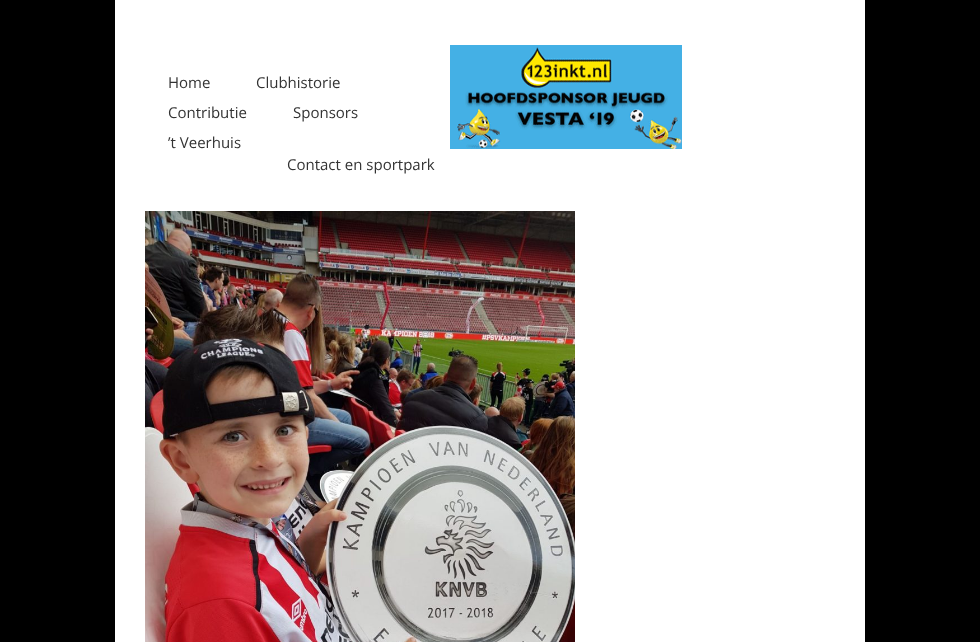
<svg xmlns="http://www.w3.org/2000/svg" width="980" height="642">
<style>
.a{font:15px Open Sans;fill:#333}
</style>
<rect width="100%" height="100%" fill="#000"/>
<path fill="#fff" d="M115 0h750v642H115z"/>
<image href="1.png" x="450" y="45" width="232" height="104"/>
<image href="2.png" x="145" y="211" width="430" height="431"/>
<text class="a" x="168" y="88">Home</text>
<text class="a" x="256" y="88">Clubhistorie</text>
<text class="a" x="168" y="118">Contributie</text>
<text class="a" x="293" y="118">Sponsors</text>
<text class="a" x="168" y="148">’t Veerhuis</text>
<text class="a" x="287" y="170">Contact en sportpark</text>
</svg>
